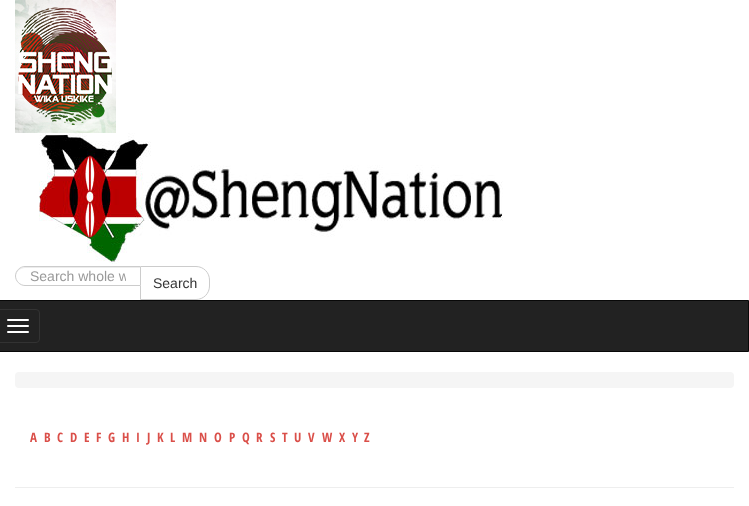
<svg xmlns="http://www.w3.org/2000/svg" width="749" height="506">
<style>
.a{font:14px Liberation Sans;fill:#999}
.b{font:14px Liberation Sans;fill:#333}
.c{font:bold 13px Open Sans Condensed;fill:#da4f49}
</style>
<defs>
<clipPath id="clip1"><path d="M30 268h96v16H30z"/></clipPath>
</defs>
<rect width="100%" height="100%" fill="#fff"/>
<image href="1.png" x="15" y="0" width="101" height="133"/>
<image href="2.png" x="39" y="133" width="464" height="131"/>
<path fill="none" stroke="#ccc" d="M140.5 266.5h55.5c7.5 0 13.5 6 13.5 13.5v6c0 7.5-6 13.5-13.5 13.5h-55.5z"/>
<path fill="#fff" d="M25 266h116v20h-116c-5.5 0-10-4.5-10-10c0-5.5 4.5-10 10-10z"/>
<path fill="#ececec" d="M25 268h115v-1h-96c-6 0-29-4-28 9c0-4 4-8 9-8z"/>
<path fill="none" stroke="#ccc" d="M25 266.5h115.5v19h-115.5c-5 0-9.5-4.5-9.5-9.5c0-5 4.5-9.5 9.5-9.5z"/>
<path fill="#222" stroke="#080808" d="M-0.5 300.5h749v51H-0.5z"/>
<rect fill="none" stroke="#333" x="-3.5" y="309.5" width="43" height="33" rx="3.5"/>
<rect fill="#fff" x="7" y="319" width="22" height="2" rx="1"/>
<rect fill="#fff" x="7" y="325" width="22" height="2" rx="1"/>
<rect fill="#fff" x="7" y="331" width="22" height="2" rx="1"/>
<rect fill="#f5f5f5" x="15" y="372" width="719" height="16" rx="4"/>
<path fill="#eee" d="M15 487h719v1H15z"/>
<g clip-path="url(#clip1)">
<text class="a" x="30" y="281">Search whole w</text>
</g>
<text class="b" x="153" y="288">Search</text>
<text class="c" x="30" y="442">A</text>
<text class="c" x="44" y="442">B</text>
<text class="c" x="57" y="442">C</text>
<text class="c" x="70" y="442">D</text>
<text class="c" x="84" y="442">E</text>
<text class="c" x="96" y="442">F</text>
<text class="c" x="108" y="442">G</text>
<text class="c" x="122" y="442">H</text>
<text class="c" x="136" y="442">I</text>
<text class="c" x="147" y="442">J</text>
<text class="c" x="157" y="442">K</text>
<text class="c" x="170" y="442">L</text>
<text class="c" x="182" y="442">M</text>
<text class="c" x="199" y="442">N</text>
<text class="c" x="214" y="442">O</text>
<text class="c" x="229" y="442">P</text>
<text class="c" x="242" y="442">Q</text>
<text class="c" x="256" y="442">R</text>
<text class="c" x="270" y="442">S</text>
<text class="c" x="282" y="442">T</text>
<text class="c" x="294" y="442">U</text>
<text class="c" x="308" y="442">V</text>
<text class="c" x="322" y="442">W</text>
<text class="c" x="339" y="442">X</text>
<text class="c" x="352" y="442">Y</text>
<text class="c" x="364" y="442">Z</text>
</svg>
